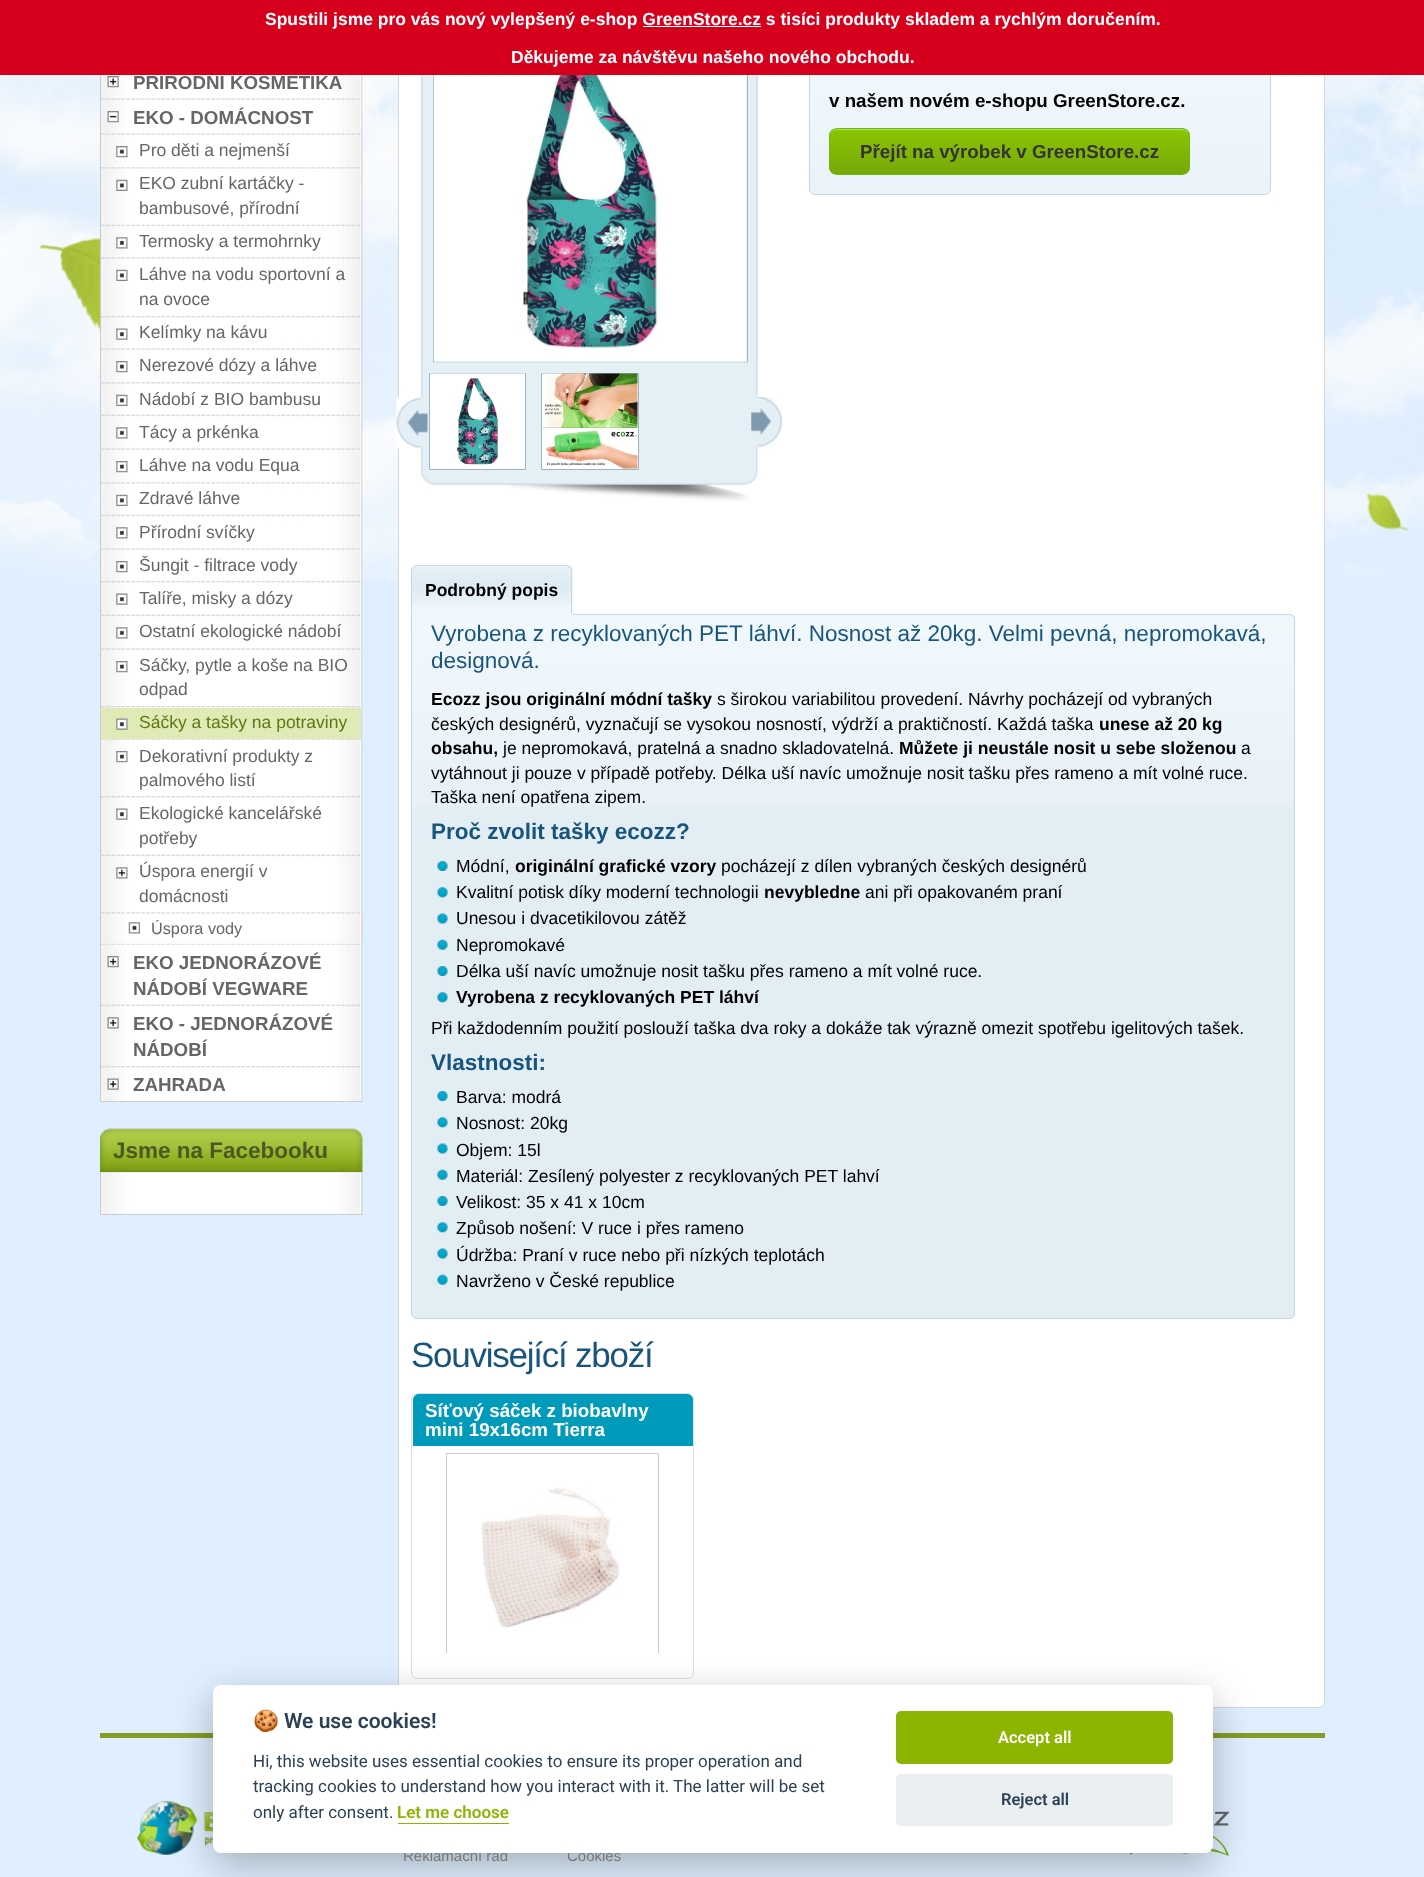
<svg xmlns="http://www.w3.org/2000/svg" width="1424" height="1877">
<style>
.a{font:bold 18.75px Liberation Sans;fill:#666}
.b{font:bold 17.5px Liberation Sans;fill:#fff}
.c{font:17.5px Liberation Sans;fill:#666}
.d{font:17.5px Liberation Sans;fill:#60780e}
.e{font:16.25px Liberation Sans;fill:#666}
.f{font:bold 22.5px Liberation Sans;fill:#4d5922}
.g{font:bold 18.75px Liberation Sans;fill:#000}
.h{font:bold 18.75px Liberation Sans;fill:#333}
.i{font:bold 17.5px Liberation Sans;fill:#000}
.j{font:22.5px Liberation Sans;fill:#18557d}
.k{font:17.5px Liberation Sans;fill:#000}
.l{font:bold 22.5px Liberation Sans;fill:#18557d}
.m{font:35px Liberation Sans;letter-spacing:-1.25px;fill:#18557d}
.n{font:bold 18.75px Liberation Sans;fill:#fff}
.o{font:15px Liberation Sans;fill:#777}
.p{font:bold 21px Noto Color Emoji;fill:#2d4156}
.q{font:600 21px Roboto;fill:#2d4156}
.r{font:17px Roboto;fill:#2d4156}
.s{font:600 17px Roboto;fill:#8bb500}
.t{font:600 16.5px Roboto;fill:#fff}
.u{font:600 16.5px Roboto;fill:#2d4156}
</style>
<defs>
<clipPath id="clip1"><rect x="829" y="128" width="361" height="47" rx="8"/></clipPath>
<linearGradient id="g1" gradientUnits="userSpaceOnUse" x1="1009" y1="129" x2="1009" y2="174"><stop offset="0.05" stop-color="#89c403"/><stop offset="1" stop-color="#77a809"/></linearGradient>
<clipPath id="clip2"><path d="M421 1453h263v200H421z"/></clipPath>
</defs>
<rect width="100%" height="100%" fill="#dfefff"/>
<image href="1.png" x="0" y="75" width="1424" height="507"/>
<path fill="#cdcdcd" d="M100 1101h263v1H100z"/>
<image href="2.png" x="100" y="75" width="263" height="24"/>
<image href="3.png" x="107" y="76" width="12" height="12"/>
<image href="4.png" x="100" y="98" width="263" height="251"/>
<image href="5.png" x="107" y="111" width="12" height="12"/>
<image href="6.png" x="101" y="133" width="262" height="34"/>
<image href="7.png" x="116" y="146" width="12" height="12"/>
<image href="8.png" x="101" y="167" width="262" height="58"/>
<image href="9.png" x="116" y="179" width="12" height="12"/>
<image href="10.png" x="101" y="224" width="262" height="33"/>
<image href="11.png" x="116" y="237" width="12" height="12"/>
<image href="12.png" x="101" y="257" width="262" height="59"/>
<image href="9.png" x="116" y="269" width="12" height="12"/>
<image href="13.png" x="100" y="316" width="263" height="33"/>
<image href="14.png" x="116" y="328" width="12" height="12"/>
<image href="15.png" x="100" y="348" width="263" height="35"/>
<image href="7.png" x="116" y="361" width="12" height="12"/>
<image href="16.png" x="100" y="382" width="263" height="33"/>
<image href="9.png" x="116" y="394" width="12" height="12"/>
<image href="17.png" x="100" y="414" width="263" height="35"/>
<image href="18.png" x="116" y="427" width="12" height="12"/>
<image href="19.png" x="100" y="448" width="263" height="35"/>
<image href="7.png" x="116" y="461" width="12" height="12"/>
<image href="20.png" x="100" y="482" width="263" height="33"/>
<image href="9.png" x="116" y="494" width="12" height="12"/>
<image href="21.png" x="100" y="514" width="263" height="35"/>
<image href="11.png" x="116" y="527" width="12" height="12"/>
<image href="22.png" x="100" y="548" width="263" height="33"/>
<image href="7.png" x="116" y="561" width="12" height="12"/>
<image href="23.png" x="100" y="581" width="263" height="34"/>
<image href="14.png" x="116" y="593" width="12" height="12"/>
<image href="24.png" x="100" y="614" width="263" height="35"/>
<image href="11.png" x="116" y="627" width="12" height="12"/>
<image href="25.png" x="100" y="648" width="263" height="58"/>
<image href="7.png" x="116" y="661" width="12" height="12"/>
<image href="26.png" x="100" y="706" width="263" height="33"/>
<image href="25.png" x="100" y="738" width="263" height="58"/>
<path fill="#dfeab7" d="M101 708h260v31H101z"/>
<image href="27.png" x="116" y="718" width="12" height="12"/>
<image href="7.png" x="116" y="751" width="12" height="12"/>
<image href="28.png" x="100" y="796" width="263" height="59"/>
<image href="14.png" x="116" y="808" width="12" height="12"/>
<image href="33.png" x="100" y="943" width="263" height="62"/>
<image href="29.png" x="100" y="854" width="263" height="90"/>
<image href="30.png" x="116" y="867" width="12" height="12"/>
<image href="31.png" x="100" y="912" width="263" height="32"/>
<image href="32.png" x="128" y="922" width="12" height="12"/>
<image href="3.png" x="107" y="956" width="12" height="12"/>
<image href="34.png" x="100" y="1004" width="263" height="62"/>
<image href="35.png" x="107" y="1017" width="12" height="12"/>
<image href="36.png" x="100" y="1066" width="263" height="35"/>
<image href="37.png" x="107" y="1078" width="12" height="12"/>
<image href="38.png" x="100" y="1128" width="263" height="45"/>
<image href="39.png" x="100" y="1172" width="263" height="42"/>
<path fill="#cdcdcd" d="M100 1214h263v1H100z"/>
<rect fill="#fff" stroke="#d6d6d6" x="398.5" y="-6.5" width="926" height="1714" rx="5.5"/>
<path fill="#e5eff6" d="M421 75h337v316H421z"/>
<image href="40.png" x="421" y="75" width="337" height="316"/>
<path fill="none" stroke="#9db4c5" d="M433.5 48.5h314v314H433.5z"/>
<image href="41.png" x="433" y="75" width="314" height="286"/>
<image href="43.png" x="421" y="362" width="337" height="140"/>
<image href="42.png" x="396" y="397" width="32" height="52"/>
<path fill="#fff" d="M430 466h95v3H430z"/>
<path fill="none" stroke="#9db4c5" d="M429.5 373.5h96v96H429.5z"/>
<image href="44.png" x="430" y="373" width="95" height="93"/>
<path fill="#fff" stroke="#9db4c5" d="M541.5 373.5h97v96H541.5z"/>
<image href="45.png" x="542" y="373" width="96" height="96"/>
<image href="46.png" x="751" y="397" width="32" height="52"/>
<image href="47.png" x="809" y="75" width="462" height="119"/>
<rect fill="none" stroke="#c6d7e2" x="809.5" y="48.5" width="461" height="146" rx="5.5"/>
<g clip-path="url(#clip1)">
<path fill="url(#g1)" d="M829 129h361v45H829z"/>
</g>
<path fill="#a4e271" d="M836 130h346c4 0 7 3 7 6c0-4-2-7-6-7h-347c-4 0-6 3-6 7c0-3 3-6 6-6z"/>
<rect fill="none" stroke="#74b807" x="829.5" y="128.5" width="360" height="46" rx="7.5"/>
<path fill="#e2edf4" d="M411 614h878c3.5 0 6 2.5 6 6v693c0 3.5-2.5 6-6 6h-872c-3.5 0-6-2.5-6-6z"/>
<image href="49.png" x="412" y="615" width="883" height="192"/>
<path fill="none" stroke="#c6d7e2" d="M411.5 614.5h877.5c3 0 5.5 2.5 5.5 5.5v693c0 3-2.5 5.5-5.5 5.5h-872c-3 0-5.5-2.5-5.5-5.5z"/>
<path fill="#f0f7fc" d="M417 565h150c3.5 0 6 2.5 6 6v44h-162v-44c0-3.5 2.5-6 6-6z"/>
<image href="48.png" x="411" y="566" width="162" height="39"/>
<path fill="#c6d7e2" d="M418 565c-2 0-4 1-5 2h1c1 0 2-1 4-1h148c2 0 3 1 4 2l1-1c-1-1-3-2-5-2z"/>
<path fill="#c6d7e2" d="M571 567c1 1 1 3 1 4v43h-1v-43c0-1 0-3-1-3z"/>
<path fill="#c6d7e2" d="M411 615v-46l2-2h1c-1 1-2 3-2 4v43z"/>
<image href="50.png" x="437" y="861" width="11" height="10"/>
<image href="51.png" x="437" y="887" width="11" height="11"/>
<image href="52.png" x="437" y="913" width="11" height="11"/>
<image href="53.png" x="437" y="939" width="11" height="11"/>
<image href="50.png" x="437" y="966" width="11" height="10"/>
<image href="51.png" x="437" y="992" width="11" height="11"/>
<image href="50.png" x="437" y="1091" width="11" height="10"/>
<image href="51.png" x="437" y="1117" width="11" height="11"/>
<image href="52.png" x="437" y="1143" width="11" height="11"/>
<image href="53.png" x="437" y="1169" width="11" height="11"/>
<image href="50.png" x="437" y="1196" width="11" height="10"/>
<image href="51.png" x="437" y="1222" width="11" height="11"/>
<image href="52.png" x="437" y="1248" width="11" height="11"/>
<image href="53.png" x="437" y="1274" width="11" height="11"/>
<rect fill="none" stroke="#dfdfdf" x="411.5" y="1393.5" width="282" height="285" rx="5.5"/>
<path fill="#009bbb" d="M419 1394h268c3.5 0 6 2.5 6 6v46h-280v-46c0-3.5 2.5-6 6-6z"/>
<g clip-path="url(#clip2)">
<path fill="none" stroke="#cacaca" d="M446.5 1453.5h212v211H446.5z"/>
</g>
<image href="54.png" x="481" y="1487" width="139" height="141"/>
<path fill="#879b25" d="M100 1733h1225v5H100z"/>
<image href="55.png" x="137" y="1800" width="76" height="55"/>
<image href="56.png" x="1130" y="1811" width="100" height="45"/>
<rect fill="#02020347" filter="blur(19px)" x="213" y="1698" width="1000" height="167" rx="8"/>
<text class="a" x="133" y="89">PŘÍRODNÍ KOSMETIKA</text>
<path fill="#d6001c" d="M0 0h1424v75H0z"/>
<text class="b" x="511" y="63">Děkujeme za návštěvu našeho nového obchodu.</text>
<path fill="#fff" d="M643 26h118v1H643z"/>
<text class="b" x="265" y="25">Spustili jsme pro vás nový vylepšený e-shop GreenStore.cz s tisíci produkty skladem a rychlým doručením.</text>
<text class="a" x="133" y="124">EKO - DOMÁCNOST</text>
<text class="c" x="139" y="156">Pro děti a nejmenší</text>
<text class="c" x="139" y="189">EKO zubní kartáčky -</text>
<text class="c" x="139" y="214">bambusové, přírodní</text>
<text class="c" x="139" y="247">Termosky a termohrnky</text>
<text class="c" x="139" y="280">Láhve na vodu sportovní a</text>
<text class="c" x="139" y="305">na ovoce</text>
<text class="c" x="139" y="338">Kelímky na kávu</text>
<text class="c" x="139" y="371">Nerezové dózy a láhve</text>
<text class="c" x="139" y="405">Nádobí z BIO bambusu</text>
<text class="c" x="139" y="438">Tácy a prkénka</text>
<text class="c" x="139" y="471">Láhve na vodu Equa</text>
<text class="c" x="139" y="504">Zdravé láhve</text>
<text class="c" x="139" y="538">Přírodní svíčky</text>
<text class="c" x="139" y="571">Šungit - filtrace vody</text>
<text class="c" x="139" y="604">Talíře, misky a dózy</text>
<text class="c" x="139" y="637">Ostatní ekologické nádobí</text>
<text class="c" x="139" y="671">Sáčky, pytle a koše na BIO</text>
<text class="c" x="139" y="695">odpad</text>
<text class="d" x="139" y="728">Sáčky a tašky na potraviny</text>
<text class="c" x="139" y="762">Dekorativní produkty z</text>
<text class="c" x="139" y="786">palmového listí</text>
<text class="c" x="139" y="819">Ekologické kancelářské</text>
<text class="c" x="139" y="844">potřeby</text>
<text class="c" x="139" y="877">Úspora energií v</text>
<text class="c" x="139" y="902">domácnosti</text>
<text class="e" x="151" y="934">Úspora vody</text>
<text class="a" x="133" y="969">EKO JEDNORÁZOVÉ</text>
<text class="a" x="133" y="995">NÁDOBÍ VEGWARE</text>
<text class="a" x="133" y="1030">EKO - JEDNORÁZOVÉ</text>
<text class="a" x="133" y="1056">NÁDOBÍ</text>
<text class="a" x="133" y="1091">ZAHRADA</text>
<text class="f" x="113" y="1158">Jsme na Facebooku</text>
<text class="g" x="829" y="107">v našem novém e-shopu GreenStore.cz.</text>
<text class="h" x="860" y="158">Přejít na výrobek v GreenStore.cz</text>
<text class="i" x="425" y="596">Podrobný popis</text>
<text class="j" x="431" y="641">Vyrobena z recyklovaných PET láhví. Nosnost až 20kg. Velmi pevná, nepromokavá,</text>
<text class="j" x="431" y="668">designová.</text>
<text class="i" x="431" y="705">Ecozz jsou originální módní tašky</text>
<text class="k" x="717" y="705">s širokou variabilitou provedení. Návrhy pocházejí od vybraných</text>
<text class="k" x="431" y="730">českých designérů, vyznačují se vysokou nosností, výdrží a praktičností. Každá taška</text>
<text class="i" x="1099" y="730">unese až 20 kg</text>
<text class="i" x="431" y="754">obsahu,</text>
<text class="k" x="503" y="754">je nepromokavá, pratelná a snadno skladovatelná.</text>
<text class="i" x="899" y="754">Můžete ji neustále nosit u sebe složenou</text>
<text class="k" x="1241" y="754">a</text>
<text class="k" x="431" y="779">vytáhnout ji pouze v případě potřeby. Délka uší navíc umožnuje nosit tašku přes rameno a mít volné ruce.</text>
<text class="k" x="431" y="803">Taška není opatřena zipem.</text>
<text class="l" x="431" y="839">Proč zvolit tašky ecozz?</text>
<text class="k" x="456" y="872">Módní,</text>
<text class="i" x="515" y="872">originální grafické vzory</text>
<text class="k" x="721" y="872">pocházejí z dílen vybraných českých designérů</text>
<text class="k" x="456" y="898">Kvalitní potisk díky moderní technologii</text>
<text class="i" x="764" y="898">nevybledne</text>
<text class="k" x="865" y="898">ani při opakovaném praní</text>
<text class="k" x="456" y="924">Unesou i dvacetikilovou zátěž</text>
<text class="k" x="456" y="951">Nepromokavé</text>
<text class="k" x="456" y="977">Délka uší navíc umožnuje nosit tašku přes rameno a mít volné ruce.</text>
<text class="i" x="456" y="1003">Vyrobena z recyklovaných PET láhví</text>
<text class="k" x="431" y="1034">Při každodenním použití poslouží taška dva roky a dokáže tak výrazně omezit spotřebu igelitových tašek.</text>
<text class="l" x="431" y="1070">Vlastnosti:</text>
<text class="k" x="456" y="1103">Barva: modrá</text>
<text class="k" x="456" y="1129">Nosnost: 20kg</text>
<text class="k" x="456" y="1156">Objem: 15l</text>
<text class="k" x="456" y="1182">Materiál: Zesílený polyester z recyklovaných PET lahví</text>
<text class="k" x="456" y="1208">Velikost: 35 x 41 x 10cm</text>
<text class="k" x="456" y="1234">Způsob nošení: V ruce i přes rameno</text>
<text class="k" x="456" y="1261">Údržba: Praní v ruce nebo při nízkých teplotách</text>
<text class="k" x="456" y="1287">Navrženo v České republice</text>
<text class="m" x="411" y="1367">Související zboží</text>
<text class="n" x="425" y="1417">Síťový sáček z biobavlny</text>
<text class="n" x="425" y="1436">mini 19x16cm Tierra</text>
<text class="o" x="403" y="1861">Reklamační řád</text>
<text class="o" x="567" y="1861">Cookies</text>
<rect fill="#fff" x="213" y="1685" width="1000" height="168" rx="8"/>
<text class="p" x="253" y="1728">🍪</text>
<text class="q" x="284" y="1728">We use cookies!</text>
<text class="r" x="253" y="1767">Hi, this website uses essential cookies to ensure its proper operation and</text>
<text class="r" x="253" y="1792">tracking cookies to understand how you interact with it. The latter will be set</text>
<text class="r" x="253" y="1818">only after consent.</text>
<text class="s" x="397" y="1818">Let me choose</text>
<path fill="#8bb500" d="M398 1823h111v1H398z"/>
<rect fill="#8bb500" x="896" y="1711" width="277" height="53" rx="5"/>
<text class="t" x="998" y="1743">Accept all</text>
<rect fill="#eaeff2" x="896" y="1774" width="277" height="52" rx="5"/>
<text class="u" x="1001" y="1805">Reject all</text>
</svg>
